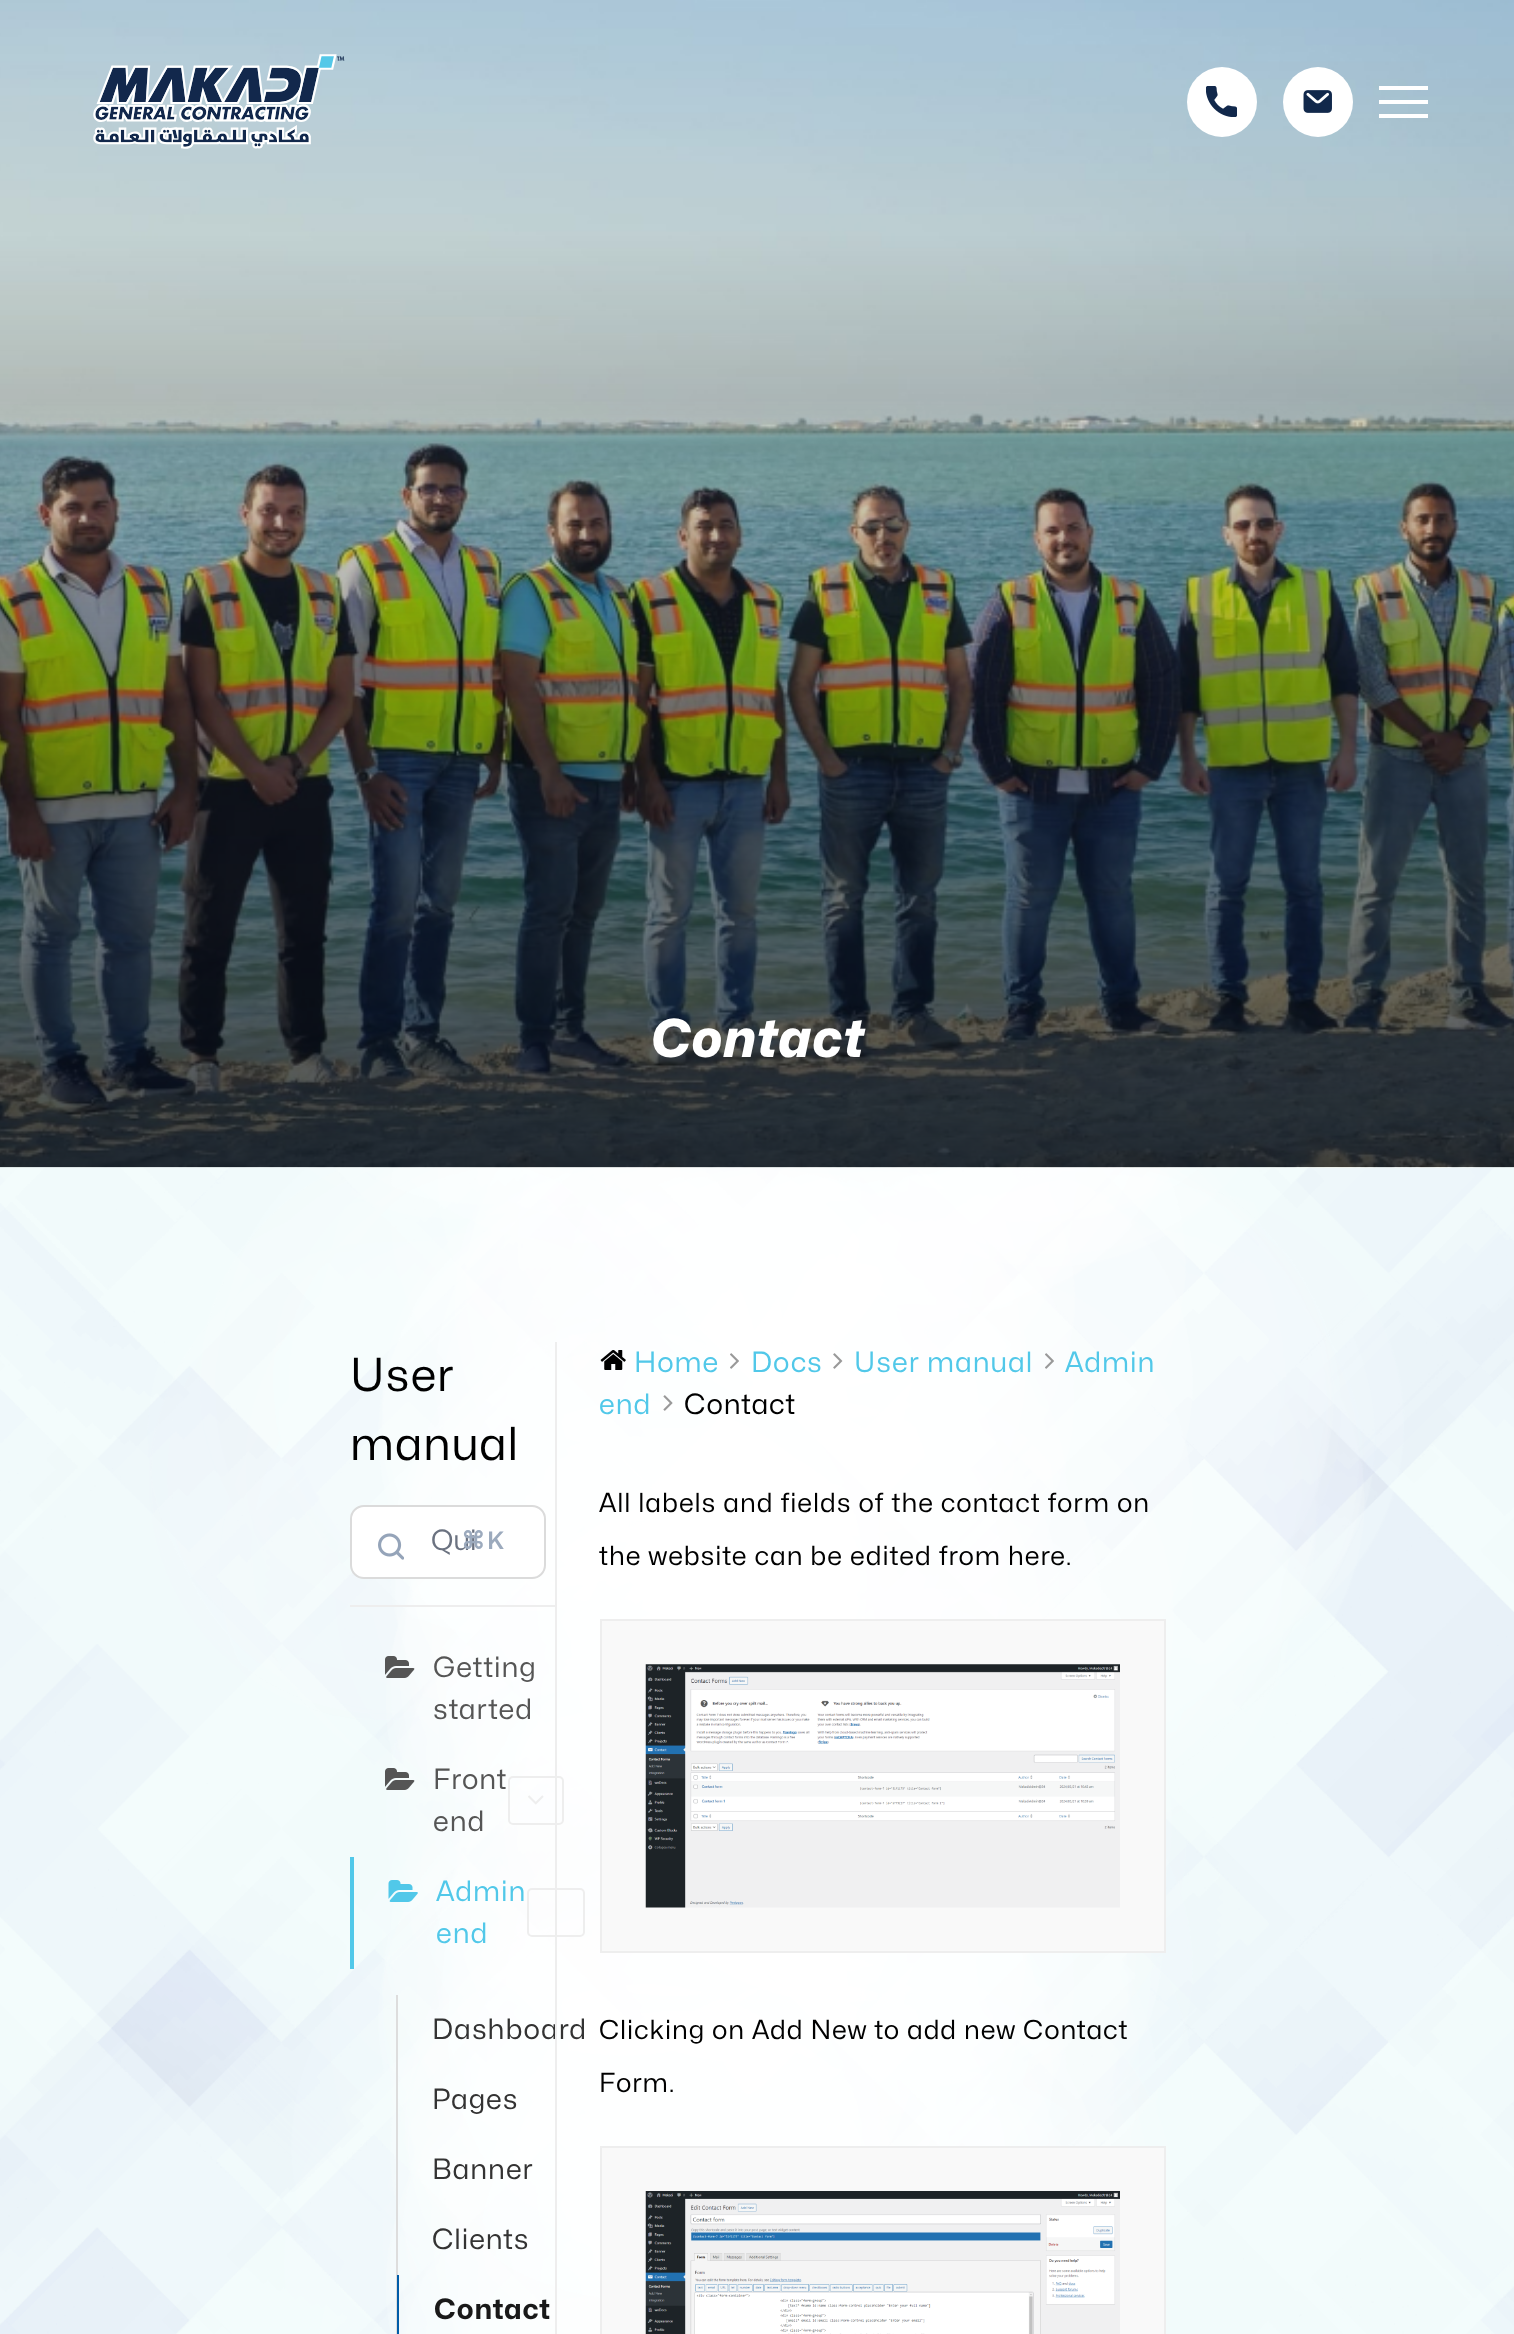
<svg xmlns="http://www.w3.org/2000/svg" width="1514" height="2334">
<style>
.a{font:italic 800 52.5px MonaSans;letter-spacing:0.9px;fill:#fff}
.b{font:italic 45.5px MonaSans;letter-spacing:0.9px;fill:#000}
.c{font:italic 28px MonaSans;fill:#6b7280}
.d{font:bold 24px DejaVu Sans;letter-spacing:0.9px;fill:#9caabd}
.e{font:600 24px MonaSans;letter-spacing:0.9px;fill:#9caabd}
.f{font:italic 28px MonaSans;letter-spacing:0.9px;fill:#555}
.g{font:italic 28px MonaSans;letter-spacing:0.9px;fill:#51c8e9}
.h{font:italic 28px MonaSans;letter-spacing:0.9px;fill:#333}
.i{font:bold 28px MonaSans;letter-spacing:0.9px;fill:#191919}
.j{font:italic 28px MonaSans;letter-spacing:0.9px;fill:#000}
.k{font:italic 26.25px MonaSans;letter-spacing:0.9px;fill:#000}
</style>
<rect width="100%" height="100%" fill="#fff"/>
<image href="5.png" x="0" y="1167" width="1514" height="1167"/>
<image href="4.png" x="0" y="0" width="1514" height="1168"/>
<image href="1.png" x="93" y="54" width="252" height="95"/>
<circle fill="#fff" cx="1222" cy="102" r="35"/>
<image href="2.png" x="1206" y="86" width="31" height="31"/>
<circle fill="#fff" cx="1318" cy="102" r="35"/>
<image href="3.png" x="1303" y="90" width="29" height="23"/>
<path fill="#fff" d="M1379 100h49v4H1379z"/>
<path fill="#fff" d="M1379 86h49v4H1379z"/>
<path fill="#fff" d="M1379 114h49v4H1379z"/>
<image href="6.png" x="0" y="1167" width="1514" height="1167"/>
<path fill="#eee" d="M350 1605h205v2H350z"/>
<rect fill="#fff" stroke="#dbdbdb" stroke-width="2" x="351" y="1506" width="194" height="72" rx="13"/>
<image href="7.png" x="378" y="1533" width="26" height="27"/>
<image href="8.png" x="385" y="1656" width="30" height="22"/>
<image href="9.png" x="385" y="1768" width="30" height="22"/>
<rect fill="none" stroke="#eee" stroke-width="2" x="509" y="1777" width="54" height="47" rx="4"/>
<image href="10.png" x="528" y="1795" width="16" height="10"/>
<path fill="#51c8e9" d="M350 1857h4v112H350z"/>
<image href="11.png" x="388" y="1880" width="30" height="22"/>
<rect fill="none" stroke="#eee" stroke-width="2" x="528" y="1889" width="56" height="47" rx="4"/>
<path fill="#ddd" d="M396 1995h2v339H396z"/>
<path fill="#005ca8" d="M397 2275h2v59H397z"/>
<image href="12.png" x="600" y="1350" width="26" height="20"/>
<image href="13.png" x="730" y="1353" width="9" height="16"/>
<image href="14.png" x="833" y="1353" width="10" height="16"/>
<image href="15.png" x="1045" y="1353" width="9" height="16"/>
<image href="16.png" x="663" y="1395" width="10" height="16"/>
<path fill="#f9f9f9" stroke="#eee" stroke-width="2" d="M601 1620h564v332H601z"/>
<image href="17.png" x="645" y="1664" width="475" height="244"/>
<path fill="#f9f9f9" stroke="#eee" stroke-width="2" d="M601 2147h564v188H601z"/>
<image href="18.png" x="645" y="2191" width="475" height="143"/>
<text class="a" x="651" y="1057">Contact</text>
<text class="b" x="350" y="1391">User</text>
<text class="b" x="350" y="1460">manual</text>
<text class="c" x="431" y="1550">Qui</text>
<text class="d" x="461" y="1549">⌘</text>
<text class="e" x="487" y="1549">K</text>
<text class="f" x="433" y="1677">Getting</text>
<text class="f" x="433" y="1719">started</text>
<text class="f" x="433" y="1789">Front</text>
<text class="f" x="433" y="1831">end</text>
<text class="g" x="436" y="1901">Admin</text>
<text class="g" x="436" y="1943">end</text>
<text class="h" x="432" y="2039">Dashboard</text>
<text class="h" x="432" y="2109">Pages</text>
<text class="h" x="432" y="2179">Banner</text>
<text class="h" x="432" y="2249">Clients</text>
<text class="i" x="434" y="2319">Contact</text>
<path fill="#eee" d="M555 1342h2v992H555z"/>
<text class="g" x="634" y="1372">Home</text>
<text class="g" x="751" y="1372">Docs</text>
<text class="g" x="854" y="1372">User manual</text>
<text class="g" x="1065" y="1372">Admin</text>
<text class="g" x="599" y="1414">end</text>
<text class="j" x="684" y="1414">Contact</text>
<text class="k" x="599" y="1512">All labels and fields of the contact form on</text>
<text class="k" x="599" y="1565">the website can be edited from here.</text>
<text class="k" x="599" y="2039">Clicking on Add New to add new Contact</text>
<text class="k" x="599" y="2092">Form.</text>
</svg>
